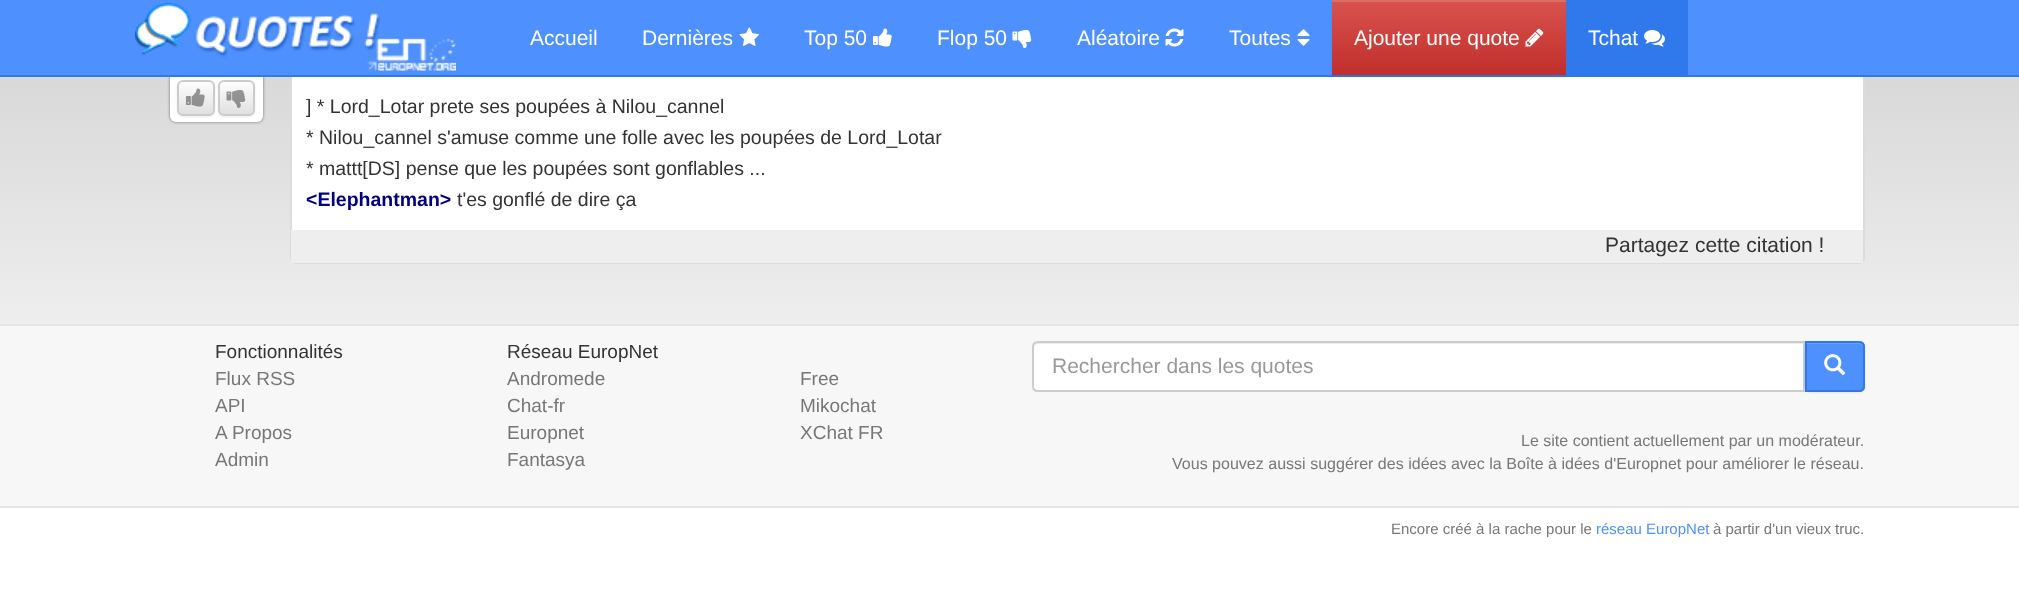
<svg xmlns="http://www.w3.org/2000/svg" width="2019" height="593">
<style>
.a{font:21px Liberation Sans;fill:#fff}
.b{font:19.5px Liberation Sans;fill:#333}
.c{font:bold 19.5px Liberation Sans;fill:#000080}
.d{font:21px Liberation Sans;fill:#333}
.e{font:19px Liberation Sans;fill:#333}
.f{font:19px Liberation Sans;fill:#777}
.g{font:21px Liberation Sans;fill:#999}
.h{font:16.05px Liberation Sans;fill:#777}
.i{font:15px Liberation Sans;fill:#777}
.j{font:15px Liberation Sans;fill:#4d90fe}
</style>
<defs>
<linearGradient id="g1" gradientUnits="userSpaceOnUse" x1="1010" y1="0" x2="1010" y2="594"><stop offset="0" stop-color="#d2d2d2"/><stop offset="0.88" stop-color="#fff"/></linearGradient>
<clipPath id="clip1"><rect x="177" y="80" width="38" height="36" rx="6"/></clipPath>
<linearGradient id="g2" gradientUnits="userSpaceOnUse" x1="196" y1="81" x2="196" y2="114"><stop offset="0" stop-color="#fff"/><stop offset="1" stop-color="#e0e0e0"/></linearGradient>
<linearGradient id="g3" gradientUnits="userSpaceOnUse" x1="1449" y1="0" x2="1449" y2="75"><stop offset="0" stop-color="#d9534f"/><stop offset="1" stop-color="#c12e2a"/></linearGradient>
<clipPath id="clip2"><rect x="218" y="80" width="37" height="36" rx="6"/></clipPath>
<linearGradient id="g4" gradientUnits="userSpaceOnUse" x1="236" y1="81" x2="236" y2="114"><stop offset="0" stop-color="#fff"/><stop offset="1" stop-color="#e0e0e0"/></linearGradient>
</defs>
<rect width="100%" height="100%" fill="#fff"/>
<path fill="url(#g1)" d="M0 77h2019v417H0z"/>
<rect fill="#00000080" filter="blur(1.5px)" x="170" y="17" width="93" height="105" rx="6"/>
<rect fill="#fff" x="170" y="17" width="93" height="105" rx="6"/>
<rect fill="#00000012" filter="blur(1px)" x="177" y="81" width="38" height="36" rx="6"/>
<g clip-path="url(#clip1)">
<path fill="url(#g2)" d="M177 81h38v33H177z"/>
</g>
<rect fill="none" stroke="#ccc" stroke-width="2" x="178" y="81" width="36" height="34" rx="5"/>
<rect fill="#00000012" filter="blur(1px)" x="218" y="81" width="37" height="36" rx="6"/>
<rect fill="#fff" stroke="#dcdcdc" stroke-width="2" x="291" y="13" width="1573" height="250" rx="5"/>
<path fill="#ffffff1a" d="M0 77h2019v1H0z"/>
<path fill="#4d90fe" d="M0 0h2019v75H0z"/>
<path fill="#3079ed" d="M0 75h2019v2H0z"/>
<image href="1.png" x="135" y="3" width="321" height="68"/>
<image href="2.png" x="739" y="27" width="20" height="19"/>
<image href="3.png" x="873" y="28" width="19" height="19"/>
<image href="4.png" x="1012" y="30" width="20" height="18"/>
<image href="5.png" x="1165" y="28" width="19" height="19"/>
<image href="6.png" x="1297" y="29" width="13" height="17"/>
<path fill="#00000012" filter="blur(1px)" d="M1332 2h234v75H1332z"/>
<path fill="url(#g3)" d="M1332 2h234v73H1332z"/>
<path fill="#df6c69" d="M1332 0h234v2H1332z"/>
<image href="7.png" x="1525" y="28" width="19" height="19"/>
<path fill="#3079ed" d="M1566 0h122v75H1566z"/>
<image href="8.png" x="1644" y="30" width="21" height="17"/>
<image href="9.png" x="186" y="88" width="19" height="19"/>
<g clip-path="url(#clip2)">
<path fill="url(#g4)" d="M218 81h37v33H218z"/>
</g>
<rect fill="none" stroke="#ccc" stroke-width="2" x="219" y="81" width="35" height="34" rx="5"/>
<image href="10.png" x="226" y="90" width="20" height="18"/>
<path fill="#eee" d="M291 230h1572v33H291z"/>
<path fill="#f7f7f7" d="M0 326h2019v180H0z"/>
<path fill="#e5e5e5" d="M0 324h2019v2H0z"/>
<path fill="#e5e5e5" d="M0 506h2019v2H0z"/>
<path fill="#fff" d="M1038 341h767v51h-767c-3.5 0-6-2.5-6-6v-39c0-3.5 2.5-6 6-6z"/>
<path fill="#ececec" d="M1038 344h765v-2h-764c-3 0-5 2-5 5v1c0-2 2-4 4-4z"/>
<path fill="none" stroke="#ccc" stroke-width="2" d="M1038 342h766v49h-766c-3 0-5-2-5-5v-39c0-3 2-5 5-5z"/>
<rect fill="#00000012" filter="blur(1px)" x="1805" y="342" width="60" height="51" rx="6"/>
<path fill="#4d90fe" d="M1805 341h54c3.5 0 6 2.5 6 6v39c0 3.5-2.5 6-6 6h-54z"/>
<path fill="#68a1fe" d="M1806 344h52c3 0 5 2 5 4v-1c0-3-2-5-5-5h-52z"/>
<path fill="none" stroke="#3079ed" stroke-width="2" d="M1806 342h53c3 0 5 2 5 5v39c0 3-2 5-5 5h-53z"/>
<image href="11.png" x="1824" y="354" width="22" height="22"/>
<text class="a" x="530" y="45">Accueil</text>
<text class="a" x="642" y="45">Dernières</text>
<text class="a" x="804" y="45">Top 50</text>
<text class="a" x="937" y="45">Flop 50</text>
<text class="a" x="1077" y="45">Aléatoire</text>
<text class="a" x="1229" y="45">Toutes</text>
<text class="a" x="1354" y="45">Ajouter une quote</text>
<text class="a" x="1588" y="45">Tchat</text>
<text class="b" x="306" y="113">] * Lord_Lotar prete ses poupées à Nilou_cannel</text>
<text class="b" x="306" y="144">* Nilou_cannel s'amuse comme une folle avec les poupées de Lord_Lotar</text>
<text class="b" x="306" y="175">* mattt[DS] pense que les poupées sont gonflables ...</text>
<text class="c" x="306" y="206">&lt;Elephantman&gt;</text>
<text class="b" x="457" y="206">t'es gonflé de dire ça</text>
<text class="d" x="1605" y="252">Partagez cette citation !</text>
<text class="e" x="215" y="358">Fonctionnalités</text>
<text class="f" x="215" y="385">Flux RSS</text>
<text class="f" x="215" y="412">API</text>
<text class="f" x="215" y="439">A Propos</text>
<text class="f" x="215" y="466">Admin</text>
<text class="e" x="507" y="358">Réseau EuropNet</text>
<text class="f" x="507" y="385">Andromede</text>
<text class="f" x="507" y="412">Chat-fr</text>
<text class="f" x="507" y="439">Europnet</text>
<text class="f" x="507" y="466">Fantasya</text>
<text class="f" x="800" y="385">Free</text>
<text class="f" x="800" y="412">Mikochat</text>
<text class="f" x="800" y="439">XChat FR</text>
<text class="g" x="1052" y="373">Rechercher dans les quotes</text>
<text class="h" x="1521" y="446">Le site contient actuellement par un modérateur.</text>
<text class="h" x="1172" y="469">Vous pouvez aussi suggérer des idées avec la Boîte à idées d'Europnet pour améliorer le réseau.</text>
<text class="i" x="1391" y="534">Encore créé à la rache pour le</text>
<text class="j" x="1596" y="534">réseau EuropNet</text>
<text class="i" x="1713" y="534">à partir d'un vieux truc.</text>
</svg>
